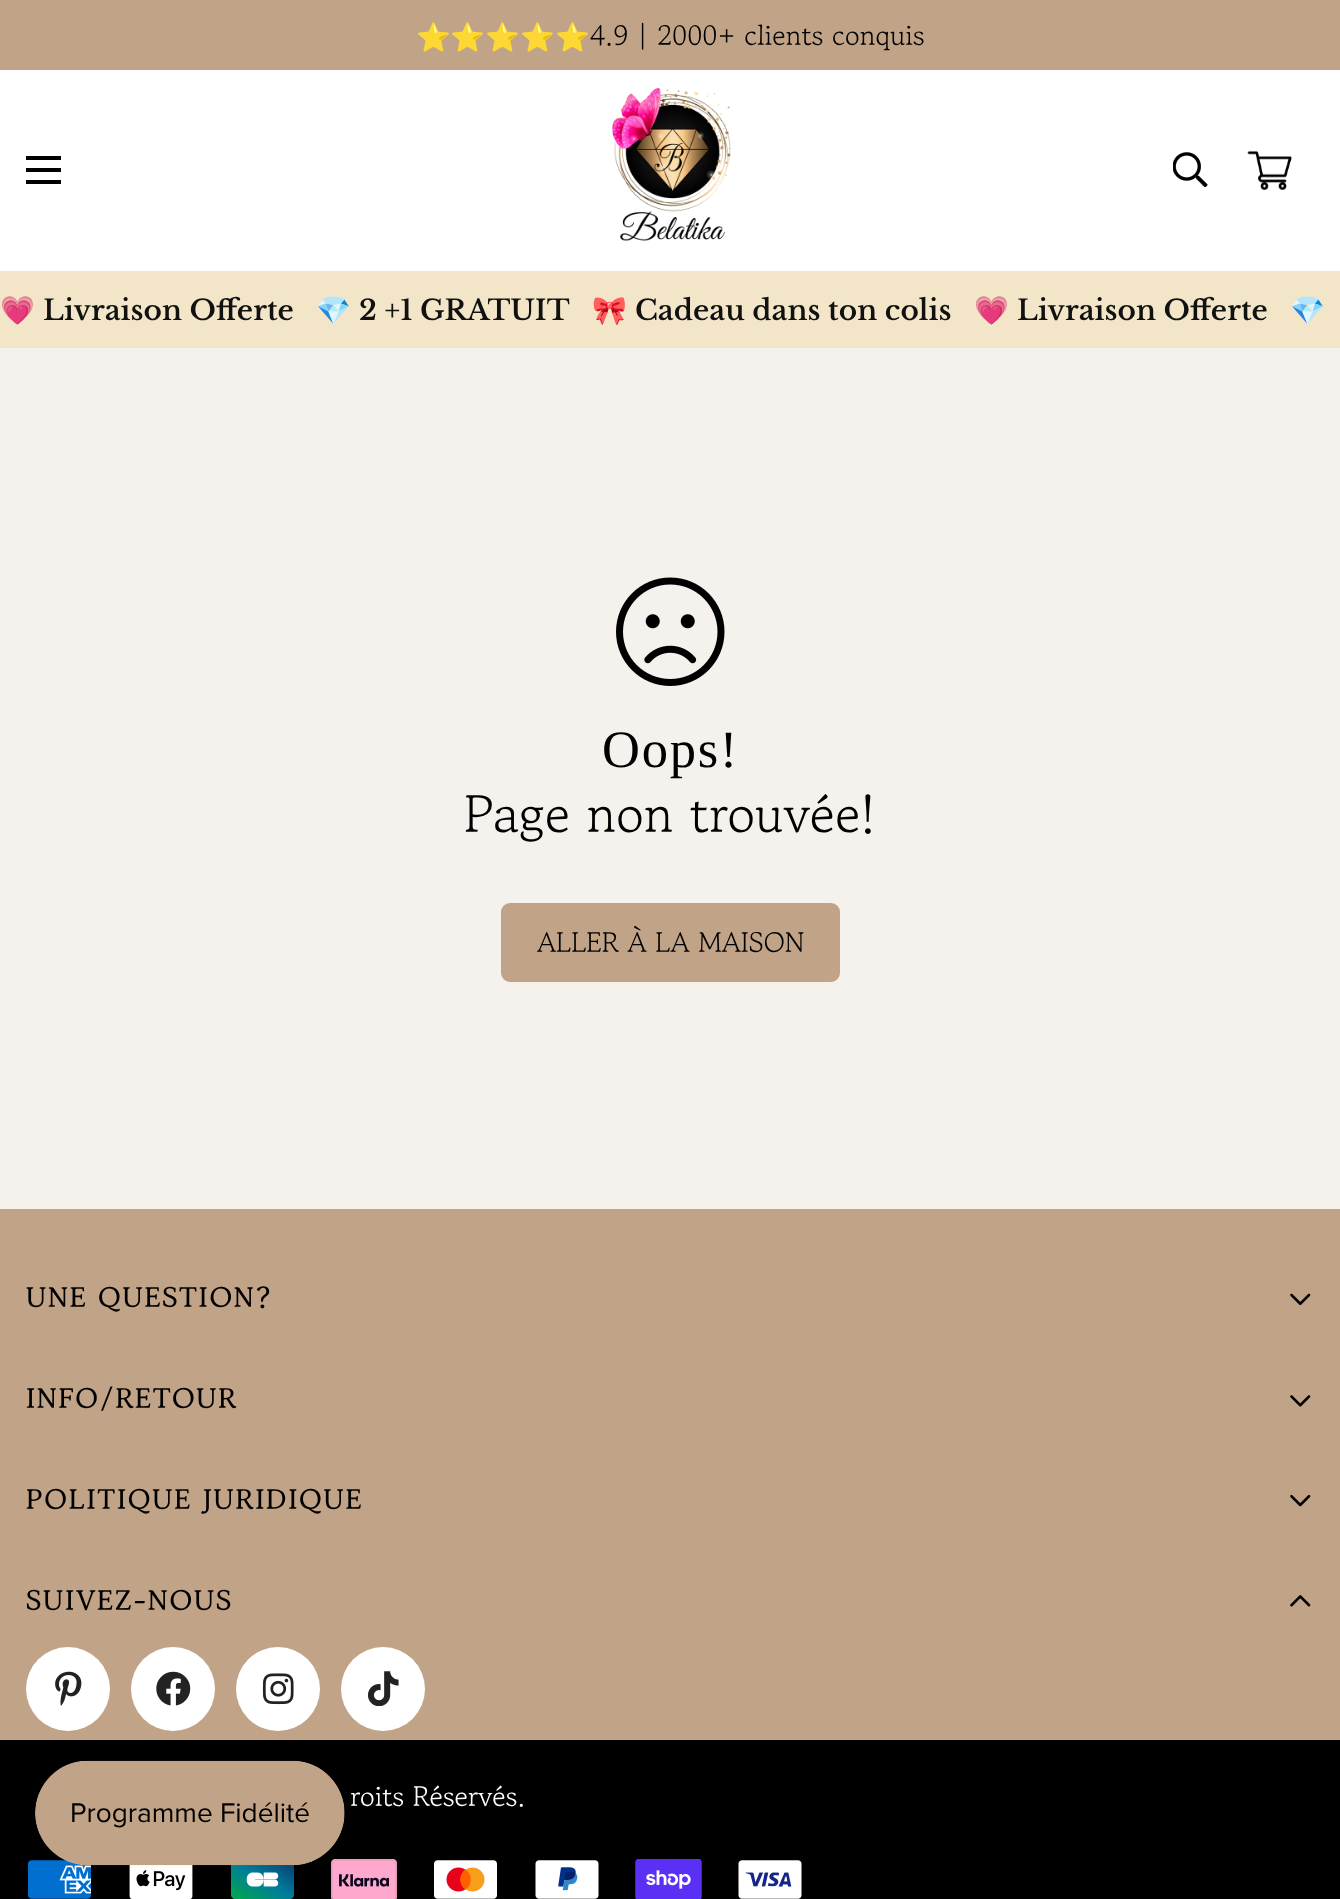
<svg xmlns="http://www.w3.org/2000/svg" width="1340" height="1899">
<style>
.a{font:28px Noto Color Emoji;fill:#000}
.b{font:28px Gowun Batang;fill:#000}
.c{font:bold 28px Noto Color Emoji;fill:#111}
.d{font:600 28px Libre Baskerville;fill:#111}
.e{font:52.5px Liberation Serif;letter-spacing:1.75px;fill:#000}
.f{font:52.5px Gowun Batang;fill:#000}
.g{font:bold 28px Gowun Batang;letter-spacing:1.75px;fill:#000}
.h{font:28px Gowun Batang;fill:#fff}
</style>
<rect width="100%" height="100%" fill="#fff"/>
<path fill="#c1a387" d="M0 0h1340v70H0z"/>
<path fill="#000" d="M26 168h35v4H26z"/>
<path fill="#000" d="M26 156h35v4H26z"/>
<path fill="#000" d="M26 180h35v4H26z"/>
<image href="1.png" x="612" y="87" width="119" height="154"/>
<image href="2.png" x="1173" y="152" width="35" height="35"/>
<image href="3.png" x="1247" y="150" width="45" height="41"/>
<path fill="#f3e6c8" d="M0 271h1340v77H0z"/>
<path fill="#f5f1ed" d="M0 348h1340v861H0z"/>
<image href="4.png" x="616" y="577" width="109" height="109"/>
<rect fill="#c1a387" stroke="#c1a387" stroke-width="2" x="502" y="904" width="337" height="77" rx="8"/>
<path fill="#c1a387" d="M0 1209h1340v531H0z"/>
<image href="5.png" x="1290" y="1293" width="21" height="13"/>
<image href="6.png" x="1290" y="1395" width="21" height="12"/>
<image href="7.png" x="1290" y="1494" width="21" height="13"/>
<image href="8.png" x="1290" y="1595" width="21" height="12"/>
<circle fill="#fff" cx="68" cy="1689" r="42"/>
<image href="9.png" x="55" y="1671" width="27" height="35"/>
<circle fill="#fff" cx="173" cy="1689" r="42"/>
<image href="10.png" x="156" y="1671" width="35" height="35"/>
<circle fill="#fff" cx="278" cy="1689" r="42"/>
<image href="11.png" x="262" y="1673" width="32" height="32"/>
<circle fill="#fff" cx="383" cy="1689" r="42"/>
<image href="12.png" x="367" y="1671" width="32" height="35"/>
<path fill="#000" d="M0 1740h1340v159H0z"/>
<image href="13.png" x="28" y="1860" width="63" height="39"/>
<image href="14.png" x="129" y="1865" width="64" height="34"/>
<image href="15.png" x="231" y="1865" width="63" height="34"/>
<image href="16.png" x="331" y="1859" width="66" height="40"/>
<image href="17.png" x="434" y="1860" width="63" height="39"/>
<image href="18.png" x="535" y="1860" width="64" height="39"/>
<image href="19.png" x="635" y="1859" width="67" height="40"/>
<image href="20.png" x="738" y="1860" width="64" height="39"/>
<image href="21.png" x="35" y="1760" width="310" height="106"/>
<text class="a" x="416" y="47">⭐⭐⭐⭐⭐</text>
<text class="b" x="590" y="47">4.9 | 2000+ clients conquis</text>
<text class="c" x="0" y="320">💗</text>
<text class="d" x="43" y="320">Livraison Offerte</text>
<text class="c" x="316" y="320">💎</text>
<text class="d" x="359" y="320">2 +1 GRATUIT</text>
<text class="c" x="592" y="320">🎀</text>
<text class="d" x="635" y="320">Cadeau dans ton colis</text>
<text class="c" x="974" y="320">💗</text>
<text class="d" x="1017" y="320">Livraison Offerte</text>
<text class="c" x="1290" y="320">💎</text>
<text class="e" x="602" y="767">Oops!</text>
<text class="f" x="464" y="836">Page non trouvée!</text>
<text class="b" x="537" y="954">ALLER À LA MAISON</text>
<text class="g" x="26" y="1309">UNE QUESTION?</text>
<text class="g" x="26" y="1410">INFO/RETOUR</text>
<text class="g" x="26" y="1511">POLITIQUE JURIDIQUE</text>
<text class="g" x="26" y="1612">SUIVEZ-NOUS</text>
<text class="h" x="350" y="1808">roits Réservés.</text>
</svg>
